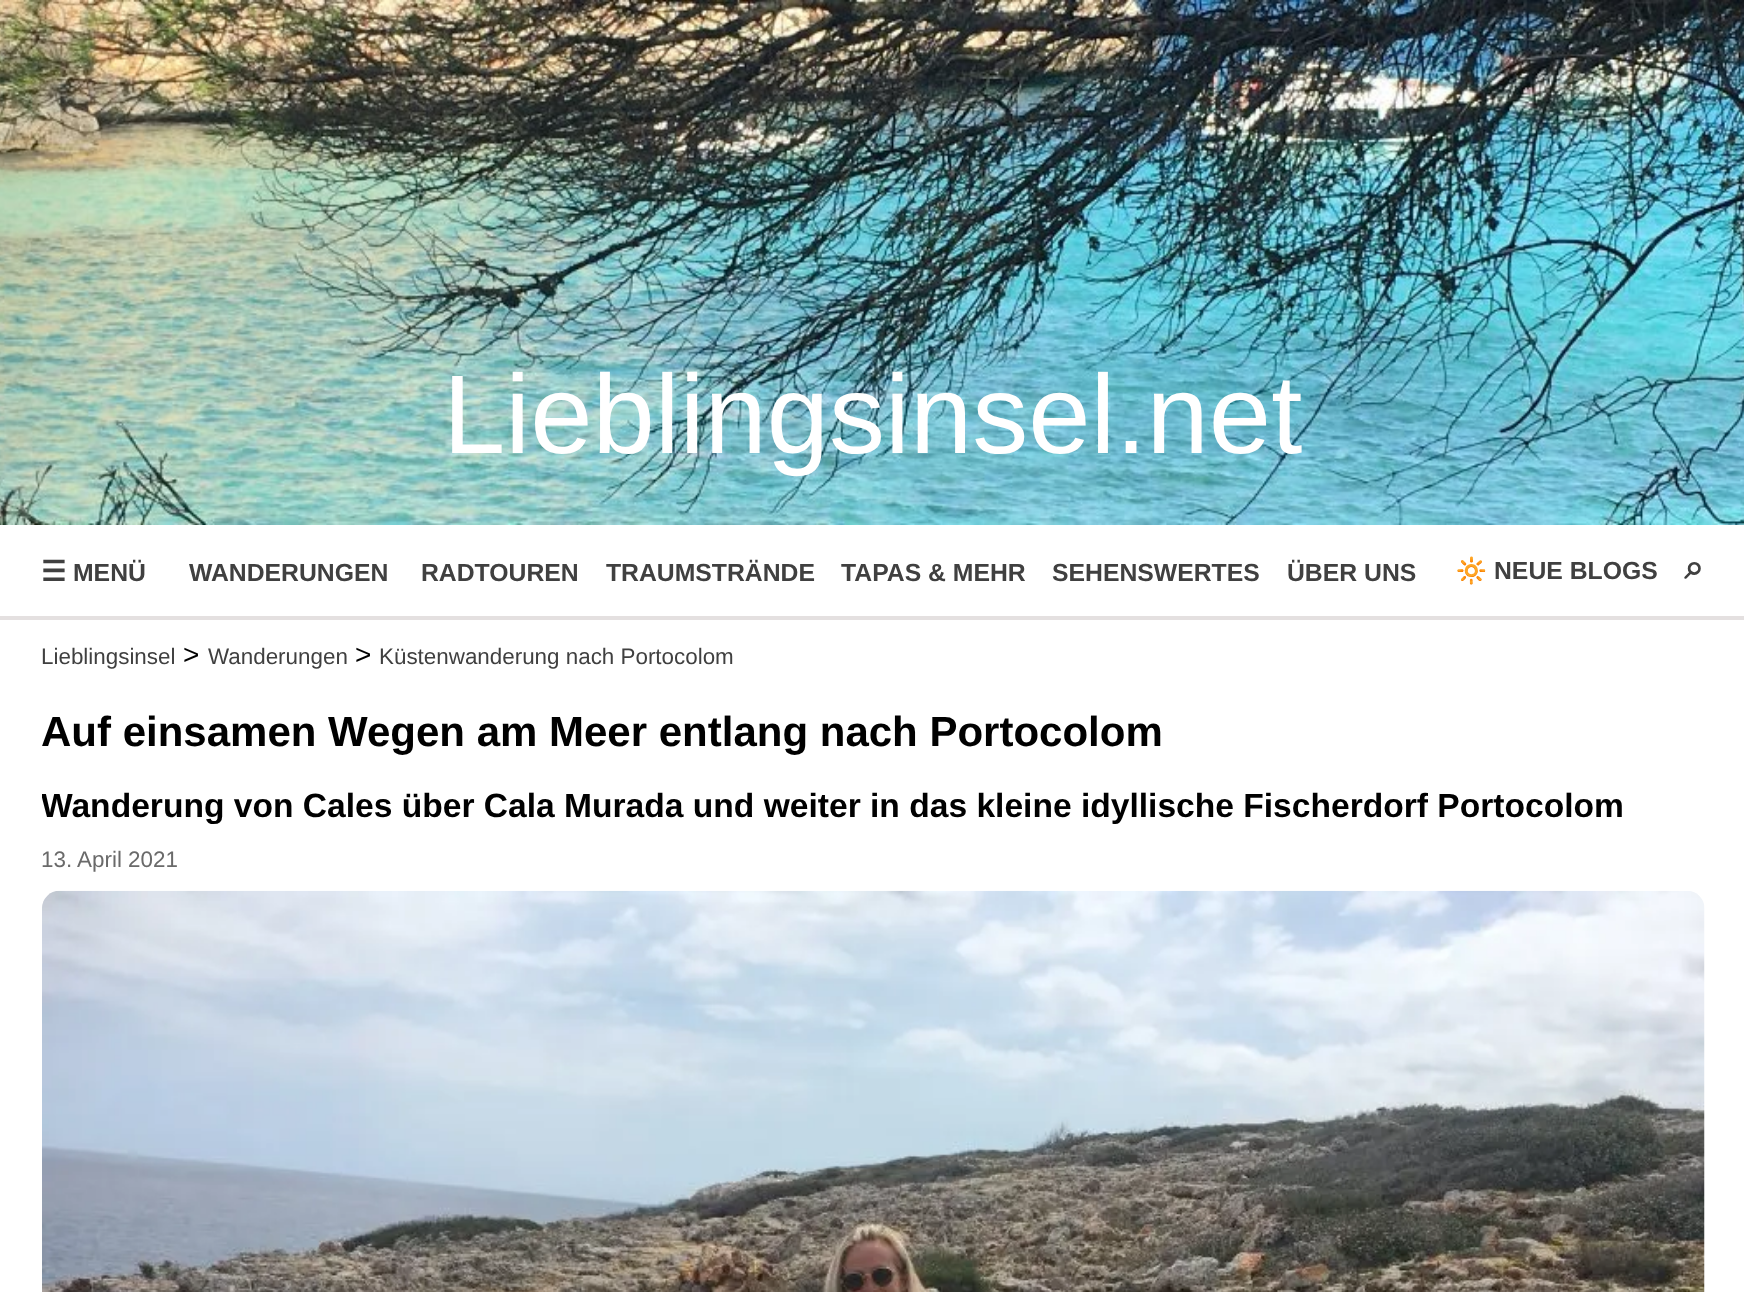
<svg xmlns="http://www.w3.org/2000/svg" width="1744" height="1292">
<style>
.a{font:112px Liberation Sans;fill:#fff}
.b{font:bold 28px DejaVu Sans;fill:#404040}
.c{font:bold 24.75px Liberation Sans;fill:#404040}
.d{font:bold 24.75px Noto Color Emoji;fill:#000}
.e{font:bold 35px FreeSerif;fill:#404040}
.f{font:22.4px Liberation Sans;fill:#404040}
.g{font:28px Liberation Sans;fill:#000}
.h{font:bold 42px Liberation Sans;fill:#000}
.i{font:bold 33.6px Liberation Sans;fill:#000}
.j{font:22.4px Liberation Sans;fill:#6a6a6a}
</style>
<defs>
<clipPath id="clip1"><path d="M42 616h1663v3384H42z"/></clipPath>
</defs>
<rect width="100%" height="100%" fill="#fff"/>
<image href="1.png" x="0" y="0" width="1744" height="525"/>
<path fill="#e4e0e0" d="M0 616v4h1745v-91v87z"/>
<image href="2.png" x="42" y="890" width="1663" height="402"/>
<text class="a" x="443" y="453">Lieblingsinsel.net</text>
<text class="b" x="41" y="581">☰</text>
<text class="c" x="73" y="581">MENÜ</text>
<text class="c" x="189" y="581">WANDERUNGEN</text>
<text class="c" x="421" y="581">RADTOUREN</text>
<text class="c" x="606" y="581">TRAUMSTRÄNDE</text>
<text class="c" x="841" y="581">TAPAS &amp; MEHR</text>
<text class="c" x="1052" y="581">SEHENSWERTES</text>
<text class="c" x="1287" y="581">ÜBER UNS</text>
<text class="d" x="1456" y="579">🔆</text>
<text class="c" x="1494" y="579">NEUE BLOGS</text>
<text class="e" x="1684" y="579">⌕</text>
<text class="f" x="41" y="664">Lieblingsinsel</text>
<text class="g" x="183" y="664">&gt;</text>
<text class="f" x="208" y="664">Wanderungen</text>
<text class="g" x="355" y="664">&gt;</text>
<text class="f" x="379" y="664">Küstenwanderung nach Portocolom</text>
<text class="h" x="41" y="746">Auf einsamen Wegen am Meer entlang nach Portocolom</text>
<g clip-path="url(#clip1)">
<text class="i" x="41" y="817">Wanderung von Cales über Cala Murada und weiter in das kleine idyllische Fischerdorf Portocolom</text>
</g>
<text class="j" x="41" y="867">13. April 2021</text>
</svg>
